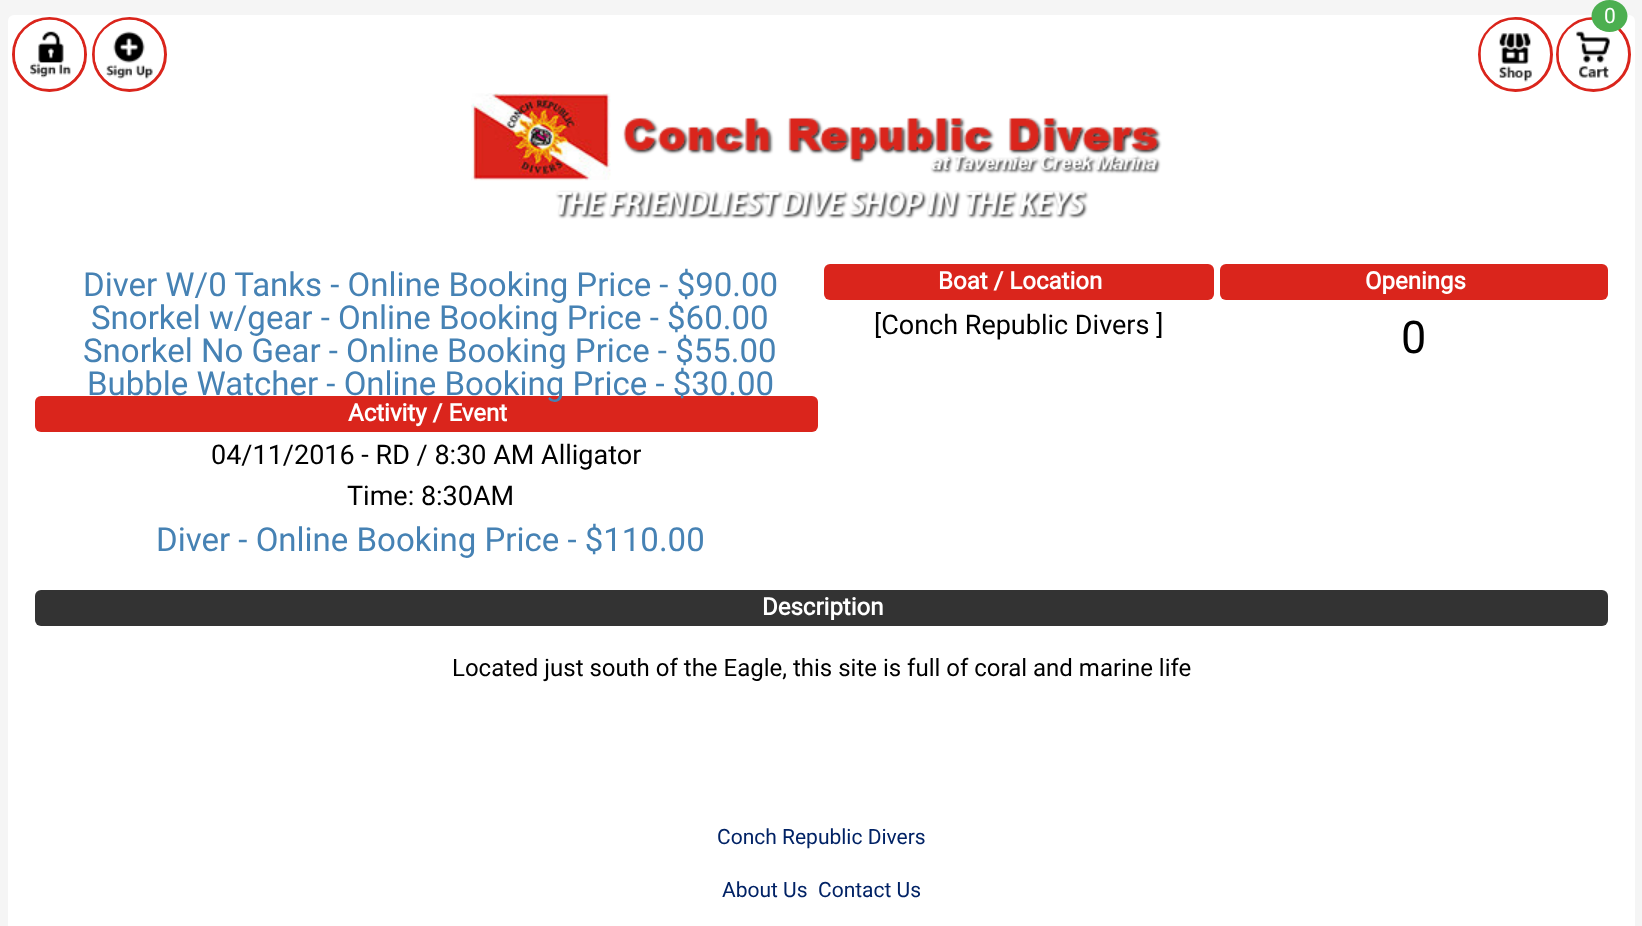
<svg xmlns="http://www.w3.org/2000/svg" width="1642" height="926">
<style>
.a{font:21px Roboto;fill:#fff}
.b{font:33px Roboto;fill:#4682b4}
.c{font:bold 24px Roboto;fill:#fff}
.d{font:27px Roboto;fill:#000}
.e{font:45px Roboto;fill:#000}
.f{font:24px Roboto;fill:#000}
.g{font:21px Roboto;fill:#012265}
</style>
<rect width="100%" height="100%" fill="#f5f5f5"/>
<rect fill="#fff" x="8" y="15" width="1627" height="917" rx="6"/>
<circle fill="none" stroke="#da251c" stroke-width="3" cx="49.5" cy="54.5" r="36"/>
<circle fill="none" stroke="#da251c" stroke-width="3" cx="129.5" cy="54.5" r="36"/>
<image href="1.png" x="15" y="19" width="69" height="68"/>
<image href="2.png" x="94" y="19" width="70" height="69"/>
<circle fill="none" stroke="#da251c" stroke-width="3" cx="1515.5" cy="54.5" r="36"/>
<image href="3.png" x="1480" y="19" width="70" height="69"/>
<circle fill="none" stroke="#da251c" stroke-width="3" cx="1593.5" cy="54.5" r="36"/>
<image href="4.png" x="1558" y="19" width="70" height="69"/>
<ellipse fill="#4caf50" cx="1609.5" cy="16" rx="18" ry="16"/>
<image href="5.png" x="471" y="93" width="691" height="126"/>
<rect fill="#da251c" x="35" y="396" width="783" height="36" rx="6"/>
<rect fill="#da251c" x="824" y="264" width="390" height="36" rx="6"/>
<rect fill="#da251c" x="1220" y="264" width="388" height="36" rx="6"/>
<rect fill="#333" x="35" y="590" width="1573" height="36" rx="6"/>
<text class="a" x="1604" y="23">0</text>
<text class="b" x="83" y="296">Diver W/0 Tanks - Online Booking Price - $90.00</text>
<text class="b" x="91" y="329">Snorkel w/gear - Online Booking Price - $60.00</text>
<text class="b" x="83" y="362">Snorkel No Gear - Online Booking Price - $55.00</text>
<text class="b" x="87" y="395">Bubble Watcher - Online Booking Price - $30.00</text>
<text class="c" x="348" y="421">Activity / Event</text>
<text class="d" x="211" y="464">04/11/2016 - RD / 8:30 AM Alligator</text>
<text class="d" x="347" y="505">Time: 8:30AM</text>
<text class="b" x="156" y="551">Diver - Online Booking Price - $110.00</text>
<text class="c" x="938" y="289">Boat / Location</text>
<text class="d" x="874" y="334">[Conch Republic Divers ]</text>
<text class="c" x="1365" y="289">Openings</text>
<text class="e" x="1401" y="353">0</text>
<text class="c" x="762" y="615">Description</text>
<text class="f" x="452" y="676">Located just south of the Eagle, this site is full of coral and marine life</text>
<text class="g" x="717" y="844">Conch Republic Divers</text>
<text class="g" x="722" y="897">About Us</text>
<text class="g" x="818" y="897">Contact Us</text>
</svg>
